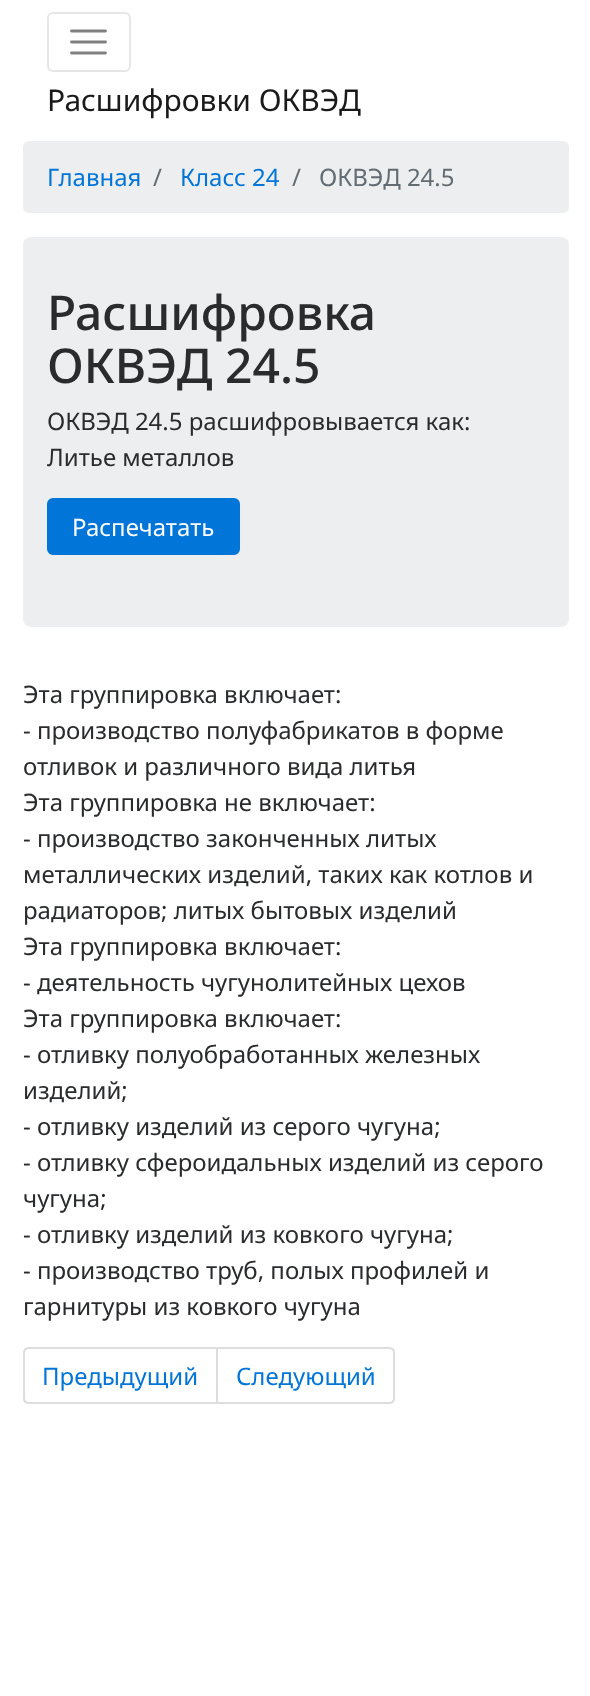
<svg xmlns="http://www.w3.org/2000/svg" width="590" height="1696">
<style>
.a{font:30px Noto Sans;fill:#1a1a1a}
.b{font:24px Noto Sans;fill:#0275d8}
.c{font:24px Noto Sans;fill:#636c72}
.d{font:500 48px Noto Sans;fill:#292b2c}
.e{font:24px Noto Sans;fill:#292b2c}
.f{font:24px Noto Sans;fill:#fff}
</style>
<rect width="100%" height="100%" fill="#fff"/>
<rect fill="none" stroke="#e6e6e6" stroke-width="2" x="48" y="13" width="82" height="58" rx="5"/>
<path fill="none" stroke="#808080" stroke-width="2.8" stroke-linecap="round" d="M71.5 31h34m-34 11h34m-34 11h34"/>
<rect fill="#eceeef" x="23" y="141" width="546" height="72" rx="6"/>
<rect fill="#eceeef" x="23" y="237" width="546" height="390" rx="8"/>
<rect fill="#0275d8" stroke="#0275d8" stroke-width="2" x="48" y="499" width="191" height="55" rx="5"/>
<path fill="none" stroke="#ddd" stroke-width="2" d="M29 1348h188v55h-188c-3 0-5-2-5-5v-45c0-3 2-5 5-5z"/>
<path fill="#fff" stroke="#ddd" stroke-width="2" d="M217 1348h172c3 0 5 2 5 5v45c0 3-2 5-5 5h-172z"/>
<text class="a" x="47" y="111">Расшифровки ОКВЭД</text>
<text class="b" x="47" y="186">Главная</text>
<text class="c" x="153" y="186">/</text>
<text class="b" x="180" y="186">Класс 24</text>
<text class="c" x="292" y="186">/</text>
<text class="c" x="319" y="186">ОКВЭД 24.5</text>
<text class="d" x="47" y="330">Расшифровка</text>
<text class="d" x="47" y="383">ОКВЭД 24.5</text>
<text class="e" x="47" y="430">ОКВЭД 24.5 расшифровывается как:</text>
<text class="e" x="47" y="466">Литье металлов</text>
<text class="f" x="72" y="536">Распечатать</text>
<text class="e" x="23" y="703">Эта группировка включает:</text>
<text class="e" x="23" y="739">- производство полуфабрикатов в форме</text>
<text class="e" x="23" y="775">отливок и различного вида литья</text>
<text class="e" x="23" y="811">Эта группировка не включает:</text>
<text class="e" x="23" y="847">- производство законченных литых</text>
<text class="e" x="23" y="883">металлических изделий, таких как котлов и</text>
<text class="e" x="23" y="919">радиаторов; литых бытовых изделий</text>
<text class="e" x="23" y="955">Эта группировка включает:</text>
<text class="e" x="23" y="991">- деятельность чугунолитейных цехов</text>
<text class="e" x="23" y="1027">Эта группировка включает:</text>
<text class="e" x="23" y="1063">- отливку полуобработанных железных</text>
<text class="e" x="23" y="1099">изделий;</text>
<text class="e" x="23" y="1135">- отливку изделий из серого чугуна;</text>
<text class="e" x="23" y="1171">- отливку сфероидальных изделий из серого</text>
<text class="e" x="23" y="1207">чугуна;</text>
<text class="e" x="23" y="1243">- отливку изделий из ковкого чугуна;</text>
<text class="e" x="23" y="1279">- производство труб, полых профилей и</text>
<text class="e" x="23" y="1315">гарнитуры из ковкого чугуна</text>
<text class="b" x="42" y="1385">Предыдущий</text>
<text class="b" x="236" y="1385">Следующий</text>
</svg>
